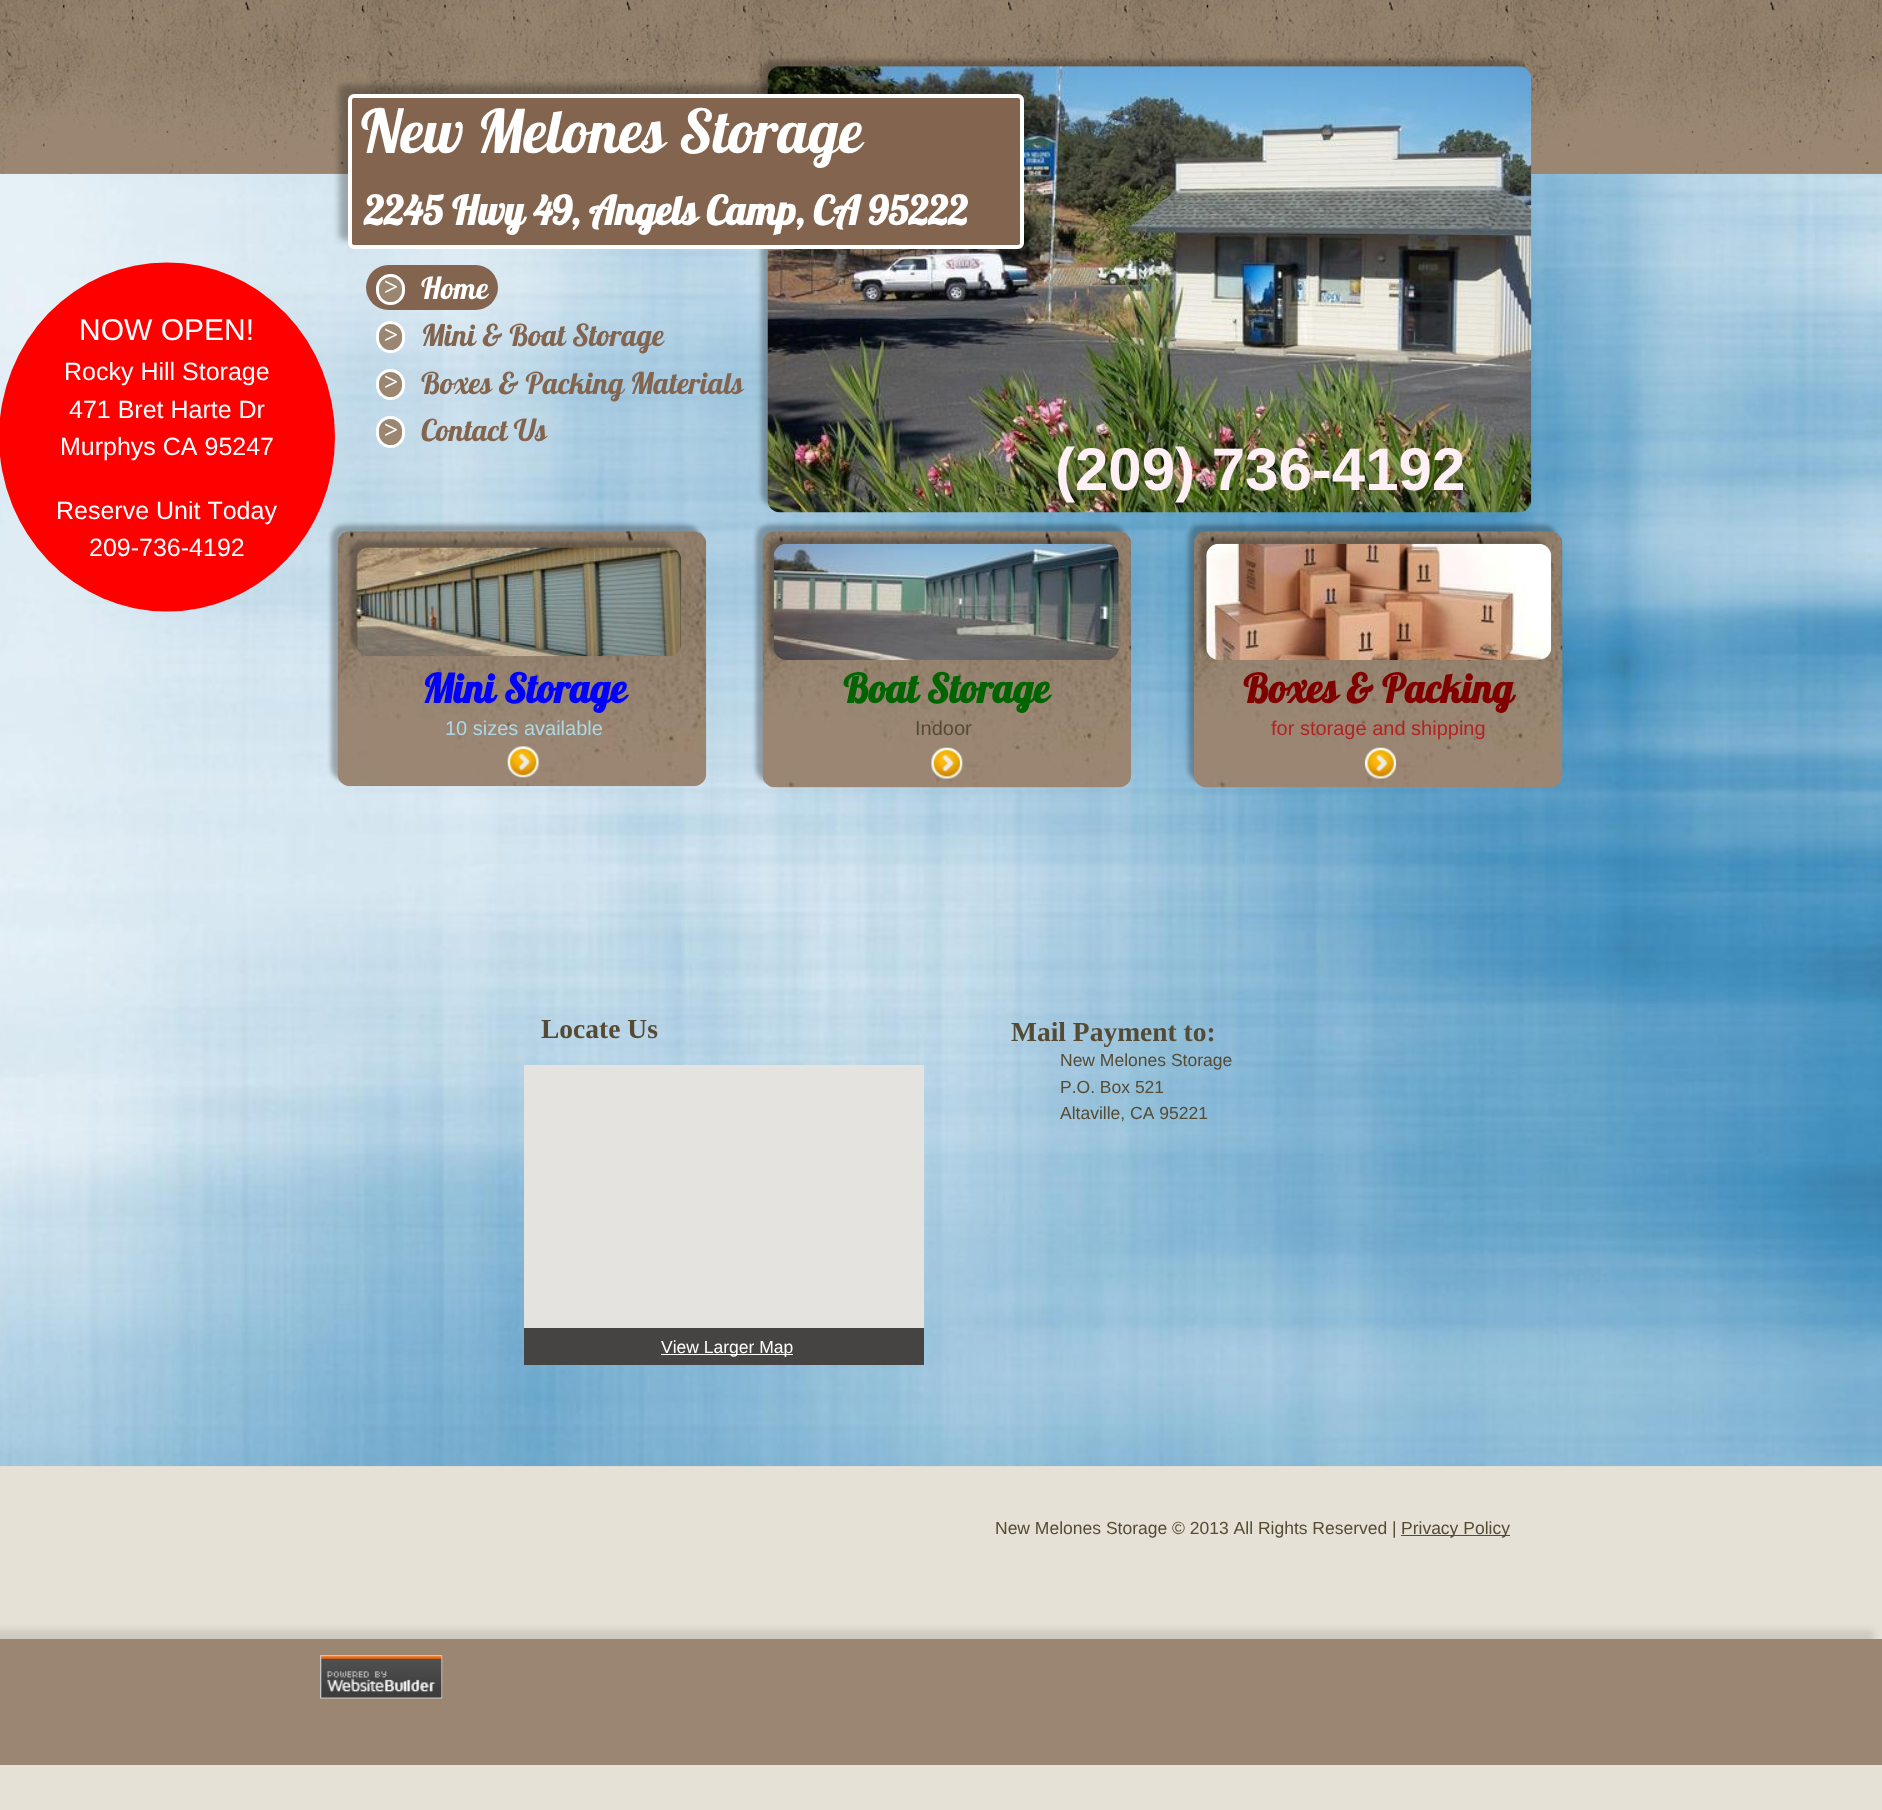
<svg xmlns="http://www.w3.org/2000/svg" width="1882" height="1810">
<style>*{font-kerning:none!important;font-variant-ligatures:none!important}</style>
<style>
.a{font:60px Lobster;fill:#fff}
.b{font:bold 40px Lobster;fill:#fff}
.c{font:bold 25px Liberation Serif;fill:#fff}
.d{font:30px Lobster;fill:#fff}
.e{font:30px Lobster;fill:#82644f}
.f{font:30px Liberation Sans;fill:#fff}
.g{font:25px Liberation Sans;fill:#fff}
.h{font:bold 60px Liberation Sans;fill:#fff0f5}
.i{font:bold 40px Lobster;fill:#00f}
.j{font:20px Liberation Sans;fill:#add8e6}
.k{font:bold 40px Lobster;fill:#006400}
.l{font:20px Liberation Sans;fill:#554b35}
.m{font:bold 40px Lobster;fill:#800000}
.n{font:20px Liberation Sans;fill:#b22222}
.o{font:bold 27.5px Liberation Serif;fill:#554b35}
.p{font:17.5px Liberation Sans;fill:#554b35}
.q{font:17.5px Liberation Sans;fill:#fff}
</style>
<rect width="100%" height="100%" fill="#e5e1d6"/>
<image href="1.png" x="0" y="0" width="1882" height="174"/>
<image href="3.png" x="0" y="173" width="1882" height="1294"/>
<rect fill="#00000047" filter="blur(2px)" x="761" y="60" width="764" height="446" rx="13"/>
<image href="2.png" x="767" y="66" width="765" height="447"/>
<rect fill="#00000047" filter="blur(3px)" x="339" y="85" width="676" height="155" rx="6"/>
<rect fill="#82644f" stroke="#fff" stroke-width="4" x="350" y="96" width="672" height="151" rx="4"/>
<rect fill="#00000047" filter="blur(2px)" x="331" y="525" width="369" height="255" rx="13"/>
<ellipse fill="#f00" cx="167" cy="437" rx="168" ry="174.5"/>
<rect fill="#82644f" x="366" y="265" width="132" height="45" rx="22.5"/>
<rect fill="#9b8671" stroke="#fff" stroke-width="3" x="377.5" y="275.5" width="26" height="28" rx="13"/>
<rect fill="#9b8671" stroke="#fff" stroke-width="3" x="377.5" y="322.5" width="26" height="29" rx="13"/>
<rect fill="#9b8671" stroke="#fff" stroke-width="3" x="377.5" y="370.5" width="26" height="28" rx="13"/>
<rect fill="#9b8671" stroke="#fff" stroke-width="3" x="377.5" y="417.5" width="26" height="29" rx="13"/>
<image href="4.png" x="337" y="531" width="370" height="256"/>
<rect fill="#00000047" filter="blur(2px)" x="756" y="525" width="369" height="256" rx="13"/>
<image href="5.png" x="762" y="531" width="370" height="257"/>
<rect fill="#00000047" filter="blur(2px)" x="1188" y="525" width="368" height="256" rx="13"/>
<image href="6.png" x="1193" y="531" width="370" height="257"/>
<rect fill="#00000047" filter="blur(2px)" x="350" y="541" width="325" height="109" rx="13"/>
<image href="7.png" x="356" y="547" width="326" height="110"/>
<rect fill="#00000047" filter="blur(2px)" x="768" y="538" width="345" height="116" rx="13"/>
<image href="8.png" x="773" y="543" width="346" height="117"/>
<rect fill="#00000047" filter="blur(2px)" x="1200" y="538" width="345" height="116" rx="13"/>
<image href="9.png" x="1206" y="543" width="346" height="117"/>
<image href="10.png" x="507" y="746" width="32" height="32"/>
<image href="11.png" x="931" y="747" width="32" height="32"/>
<image href="12.png" x="1365" y="747" width="32" height="32"/>
<path fill="#e5e3df" d="M524 1065h400v263H524z"/>
<path fill="#454443" d="M524 1328h400v37H524z"/>
<path fill="#fff" d="M661 1354h132v1H661z"/>
<path fill="#554b35" d="M1401 1535h109v1H1401z"/>
<path fill="#0000001a" filter="blur(3px)" d="M-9 1630h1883v126H-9z"/>
<path fill="#9b8671" d="M0 1639h1882v126H0z"/>
<image href="13.png" x="320" y="1655" width="123" height="44"/>
<text class="a" x="361" y="153">New Melones Storage</text>
<text class="b" x="364" y="225">2245 Hwy 49, Angels Camp, CA 95222</text>
<text class="c" x="384" y="295">&gt;</text>
<text class="d" x="421" y="299">Home</text>
<text class="c" x="384" y="343">&gt;</text>
<text class="e" x="421" y="346">Mini &amp; Boat Storage</text>
<text class="c" x="384" y="390">&gt;</text>
<text class="e" x="421" y="394">Boxes &amp; Packing</text>
<text class="e" x="630" y="394">Materials</text>
<text class="c" x="384" y="438">&gt;</text>
<text class="e" x="421" y="441">Contact Us</text>
<text class="f" x="79" y="340">NOW OPEN!</text>
<text class="g" x="64" y="380">Rocky Hill Storage</text>
<text class="g" x="69" y="418">471 Bret Harte Dr</text>
<text class="g" x="60" y="455">Murphys CA 95247</text>
<text class="g" x="56" y="519">Reserve Unit Today</text>
<text class="g" x="89" y="556">209-736-4192</text>
<text class="h" x="1055" y="490">(209) 736-4192</text>
<text class="i" x="422" y="703">Mini Storage</text>
<text class="j" x="445" y="735">10 sizes available</text>
<text class="k" x="843" y="703">Boat Storage</text>
<text class="l" x="915" y="735">Indoor</text>
<text class="m" x="1243" y="703">Boxes</text>
<text class="m" x="1346" y="703">&amp; Packing</text>
<text class="n" x="1271" y="735">for storage and shipping</text>
<text class="o" x="541" y="1038">Locate Us</text>
<text class="o" x="1011" y="1041">Mail Payment to:</text>
<text class="p" x="1060" y="1066">New Melones Storage</text>
<text class="p" x="1060" y="1093">P.O. Box 521</text>
<text class="p" x="1060" y="1119">Altaville, CA 95221</text>
<text class="q" x="661" y="1353">View Larger Map</text>
<text class="p" x="995" y="1534">New Melones Storage © 2013 All Rights Reserved |</text>
<text class="p" x="1401" y="1534">Privacy Policy</text>
</svg>
